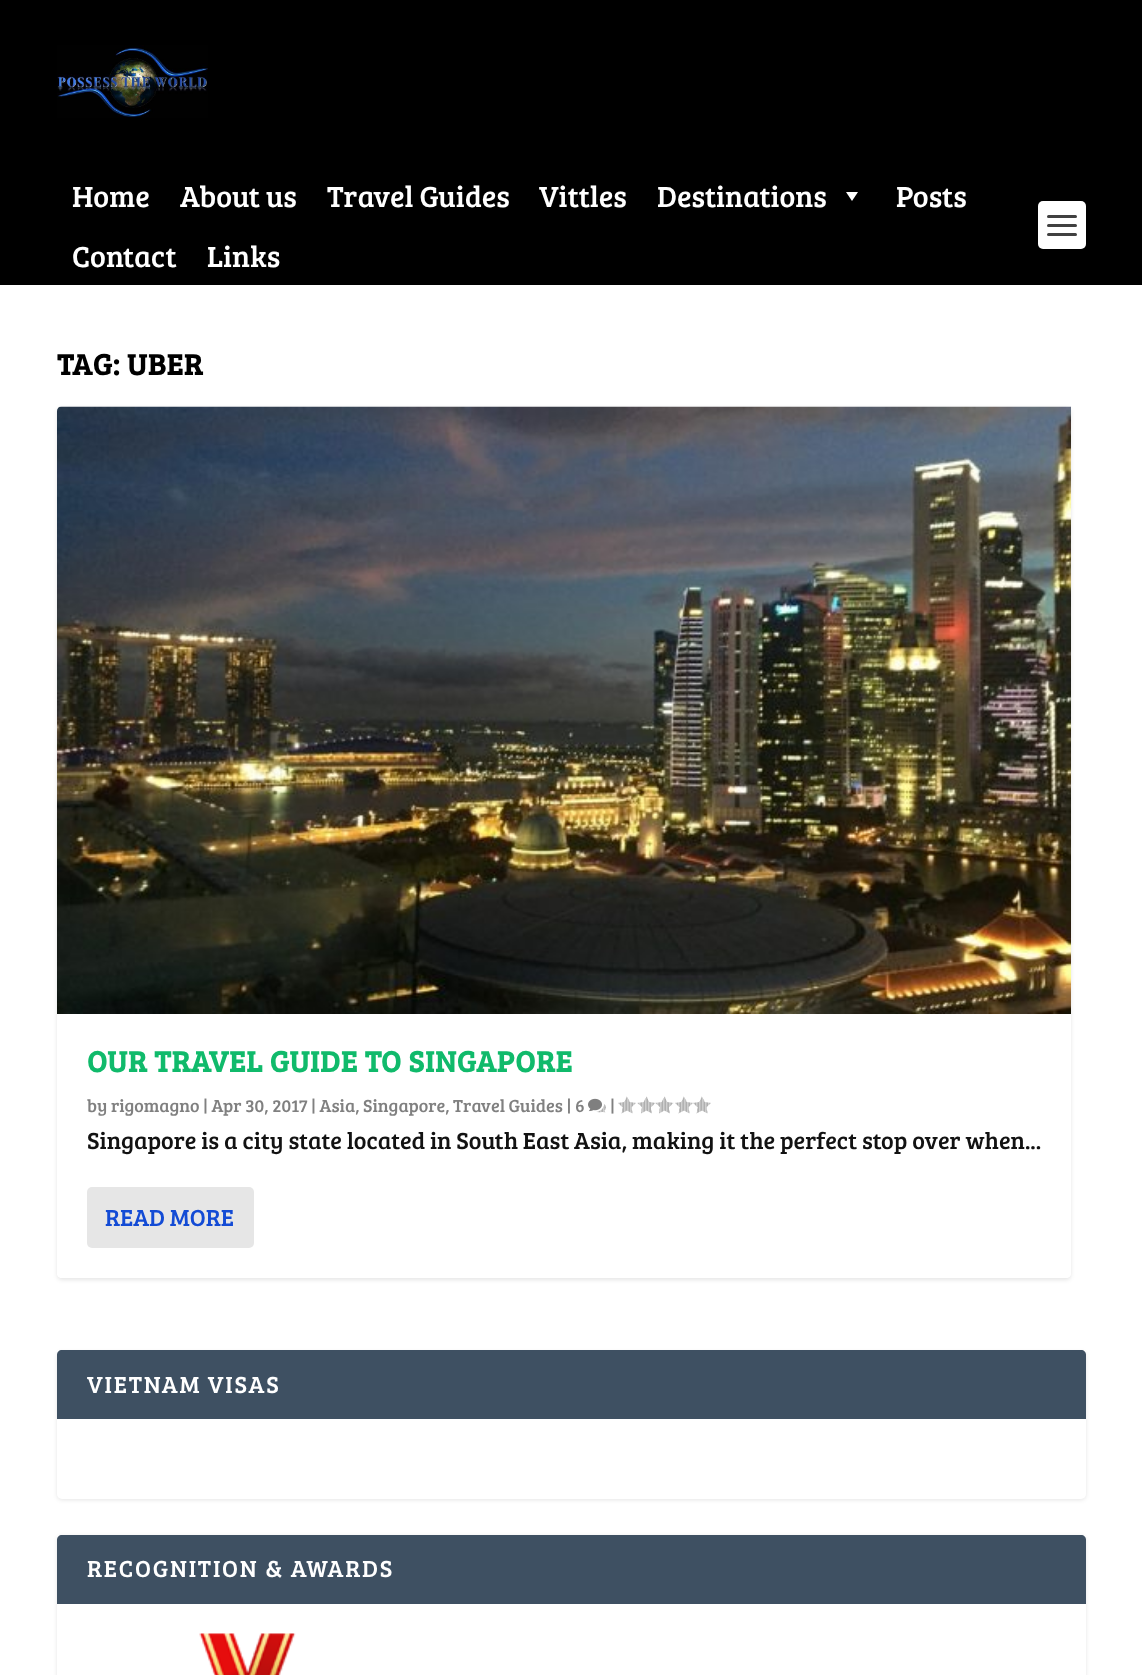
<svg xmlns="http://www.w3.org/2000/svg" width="1142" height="1675">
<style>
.a{font:30px Bree Serif;fill:#fff}
.b{font:bold 30px Bree Serif;letter-spacing:0.75px;fill:#000}
.c{font:bold 30px Bree Serif;letter-spacing:0.75px;fill:#10ba6b}
.d{font:18px Bree Serif;fill:#808080}
.e{font:24px Bree Serif;fill:#121212}
.f{font:24px Bree Serif;fill:#134bd5}
.g{font:24px Bree Serif;letter-spacing:1.8px;fill:#fff}
</style>
<defs>
<clipPath id="clip1"><path d="M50 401h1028v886h-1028zm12 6h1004c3 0 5 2 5 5v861c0 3-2 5-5 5h-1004c-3 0-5-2-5-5v-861c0-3 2-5 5-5z" clip-rule="evenodd"/></clipPath>
<clipPath id="clip2"><path d="M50 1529h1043v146h-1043zm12 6h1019c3 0 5 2 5 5v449c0 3-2 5-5 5h-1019c-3 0-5-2-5-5v-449c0-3 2-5 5-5z" clip-rule="evenodd"/></clipPath>
</defs>
<rect width="100%" height="100%" fill="#fff"/>
<path fill="#000" d="M0 0h1142v285H0z"/>
<image href="1.png" x="57" y="45" width="151" height="73"/>
<path fill="#fff" d="M858 192l-6 9l-6-9z"/>
<rect fill="#fff" x="1038" y="201" width="48" height="48" rx="5"/>
<rect fill="#404040" x="1047" y="215" width="30" height="3" rx="1.5"/>
<rect fill="#404040" x="1047" y="224" width="30" height="3" rx="1.5"/>
<rect fill="#404040" x="1047" y="233" width="30" height="3" rx="1.5"/>
<g clip-path="url(#clip1)">
<rect fill="#0000001a" filter="blur(2px)" x="57" y="408" width="1014" height="872" rx="5"/>
</g>
<rect fill="#fff" x="57" y="407" width="1014" height="871" rx="5"/>
<image href="2.png" x="57" y="406" width="1014" height="608"/>
<image href="3.png" x="588" y="1098" width="18" height="15"/>
<image href="4.png" x="618" y="1096" width="18" height="18"/>
<image href="5.png" x="637" y="1096" width="19" height="18"/>
<image href="6.png" x="655" y="1096" width="19" height="18"/>
<image href="4.png" x="675" y="1096" width="18" height="18"/>
<image href="4.png" x="693" y="1096" width="18" height="18"/>
<rect fill="#e6e6e6" x="87" y="1187" width="167" height="61" rx="5"/>
<rect fill="#0000001a" filter="blur(2px)" x="57" y="1352" width="1029" height="148" rx="5"/>
<rect fill="#fff" x="57" y="1350" width="1029" height="149" rx="5"/>
<path fill="#3e5062" d="M62 1350h1019c3 0 5 2 5 5v64h-1029v-64c0-3 2-5 5-5z"/>
<g clip-path="url(#clip2)">
<rect fill="#0000001a" filter="blur(2px)" x="57" y="1536" width="1029" height="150" rx="5"/>
</g>
<path fill="#3e5062" d="M62 1535h1019c3 0 5 2 5 5v64h-1029v-64c0-3 2-5 5-5z"/>
<image href="7.png" x="199" y="1633" width="97" height="42"/>
<text class="a" x="72" y="207">Home</text>
<text class="a" x="180" y="207">About us</text>
<text class="a" x="327" y="207">Travel Guides</text>
<text class="a" x="539" y="207">Vittles</text>
<text class="a" x="657" y="207">Destinations</text>
<text class="a" x="896" y="207">Posts</text>
<text class="a" x="72" y="267">Contact</text>
<text class="a" x="207" y="267">Links</text>
<text class="b" x="57" y="375">TAG: UBER</text>
<text class="c" x="87" y="1072">OUR TRAVEL GUIDE TO SINGAPORE</text>
<text class="d" x="87" y="1112">by rigomagno | Apr 30, 2017 | Asia, Singapore, Travel Guides | 6</text>
<text class="d" x="610" y="1112">|</text>
<text class="e" x="87" y="1149">Singapore is a city state located in South East Asia, making it the perfect stop over when...</text>
<text class="f" x="105" y="1226">READ MORE</text>
<text class="g" x="87" y="1393">VIETNAM VISAS</text>
<text class="g" x="87" y="1577">RECOGNITION &amp; AWARDS</text>
</svg>
